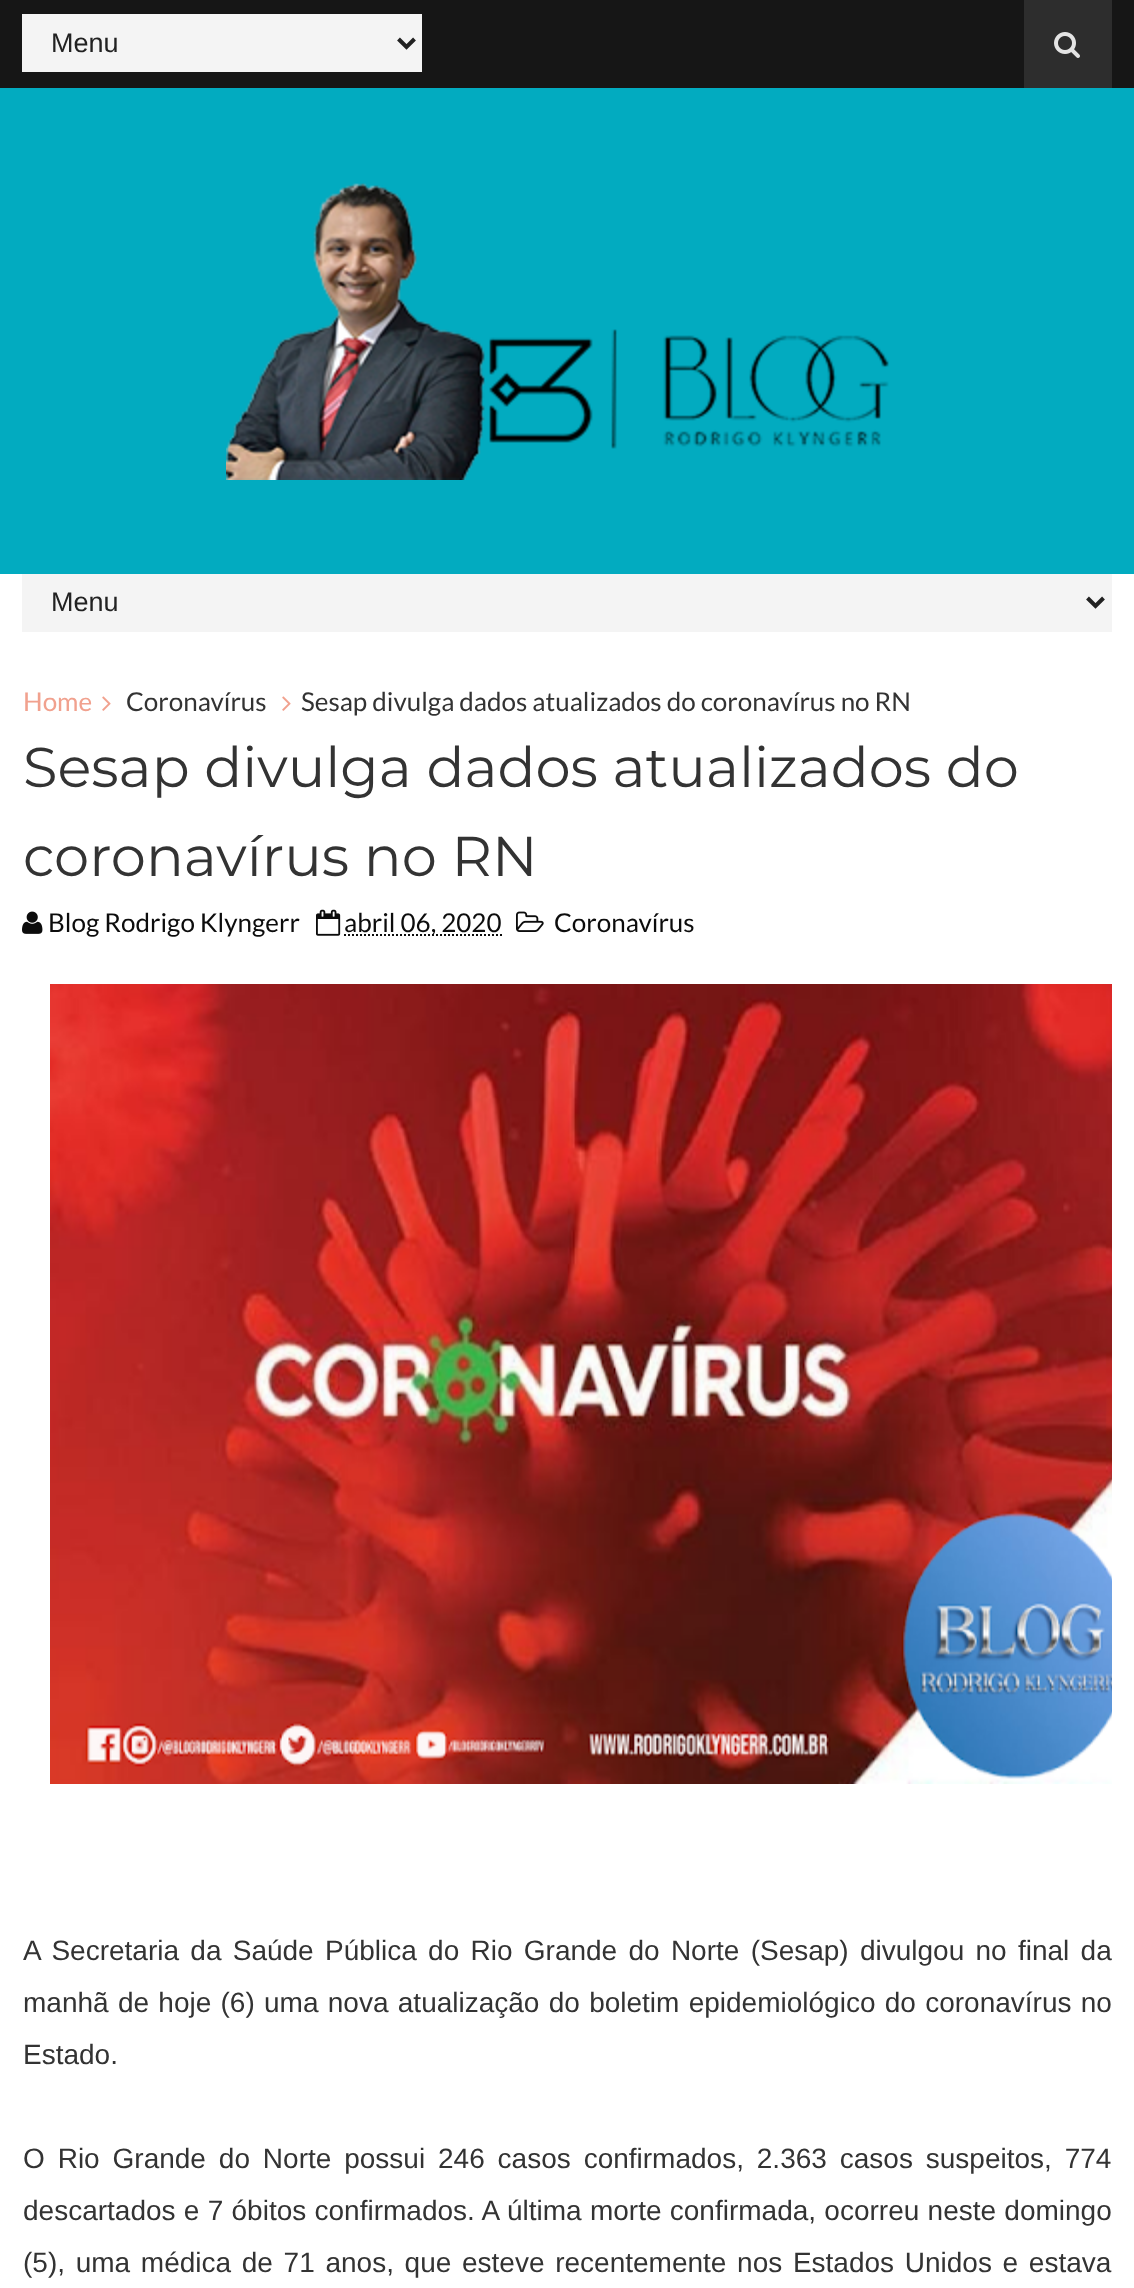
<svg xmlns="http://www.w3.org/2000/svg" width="1134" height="2288">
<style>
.a{font:27px Liberation Sans;fill:#222}
.b{font:26px Lato;fill:#f1a18e}
.c{font:26px Lato;fill:#333}
.d{font:100 56px Montserrat;fill:#333}
.e{font:26px Lato;fill:#0c0c0c}
.f{font:28px Liberation Sans;fill:#333}
</style>
<rect width="100%" height="100%" fill="#fff"/>
<path fill="#161616" d="M0 0h1134v88H0z"/>
<path fill="#02abc0" d="M0 88h1134v486H0z"/>
<path fill="#f4f4f4" d="M22 14h400v58H22z"/>
<path fill="none" stroke="#222" stroke-width="4" d="M398.5 39l8 8l8-8"/>
<path fill="#2d2d2d" d="M1024 0h88v88H1024z"/>
<image href="1.png" x="1054" y="32" width="26" height="26"/>
<image href="2.png" x="226" y="183" width="663" height="297"/>
<path fill="#f4f4f4" d="M22 574h1090v58H22z"/>
<path fill="none" stroke="#222" stroke-width="4" d="M1087.5 598l8 8l8-8"/>
<image href="3.png" x="102" y="696" width="9" height="15"/>
<image href="3.png" x="282" y="696" width="9" height="15"/>
<image href="4.png" x="22" y="911" width="21" height="23"/>
<image href="5.png" x="316" y="909" width="25" height="27"/>
<path fill="none" stroke="#0c0c0c" stroke-width="2" stroke-dasharray="2 2" d="M344 935h158"/>
<image href="6.png" x="516" y="911" width="28" height="21"/>
<image href="7.png" x="50" y="984" width="1062" height="800"/>
<text class="a" x="51" y="52">Menu</text>
<text class="a" x="51" y="611">Menu</text>
<text class="b" x="23" y="711">Home</text>
<text class="c" x="126" y="711">Coronavírus</text>
<text class="c" x="301" y="711">Sesap divulga dados atualizados do coronavírus no RN</text>
<text class="d" x="23" y="787">Sesap divulga dados atualizados do</text>
<text class="d" x="23" y="876">coronavírus no RN</text>
<text class="e" x="48" y="932">Blog Rodrigo Klyngerr</text>
<text class="e" x="344" y="932">abril 06, 2020</text>
<text class="e" x="554" y="932">Coronavírus</text>
<text class="f" x="23" y="1960" word-spacing="3.5">A Secretaria da Saúde Pública do Rio Grande do Norte (Sesap) divulgou no final da</text>
<text class="f" x="23" y="2012" word-spacing="1.5">manhã de hoje (6) uma nova atualização do boletim epidemiológico do coronavírus no</text>
<text class="f" x="23" y="2064">Estado.</text>
<text class="f" x="23" y="2168" word-spacing="5.1">O Rio Grande do Norte possui 246 casos confirmados, 2.363 casos suspeitos, 774</text>
<text class="f" x="23" y="2220" word-spacing="0.5">descartados e 7 óbitos confirmados. A última morte confirmada, ocorreu neste domingo</text>
<text class="f" x="23" y="2272" word-spacing="2.9">(5), uma médica de 71 anos, que esteve recentemente nos Estados Unidos e estava</text>
</svg>
